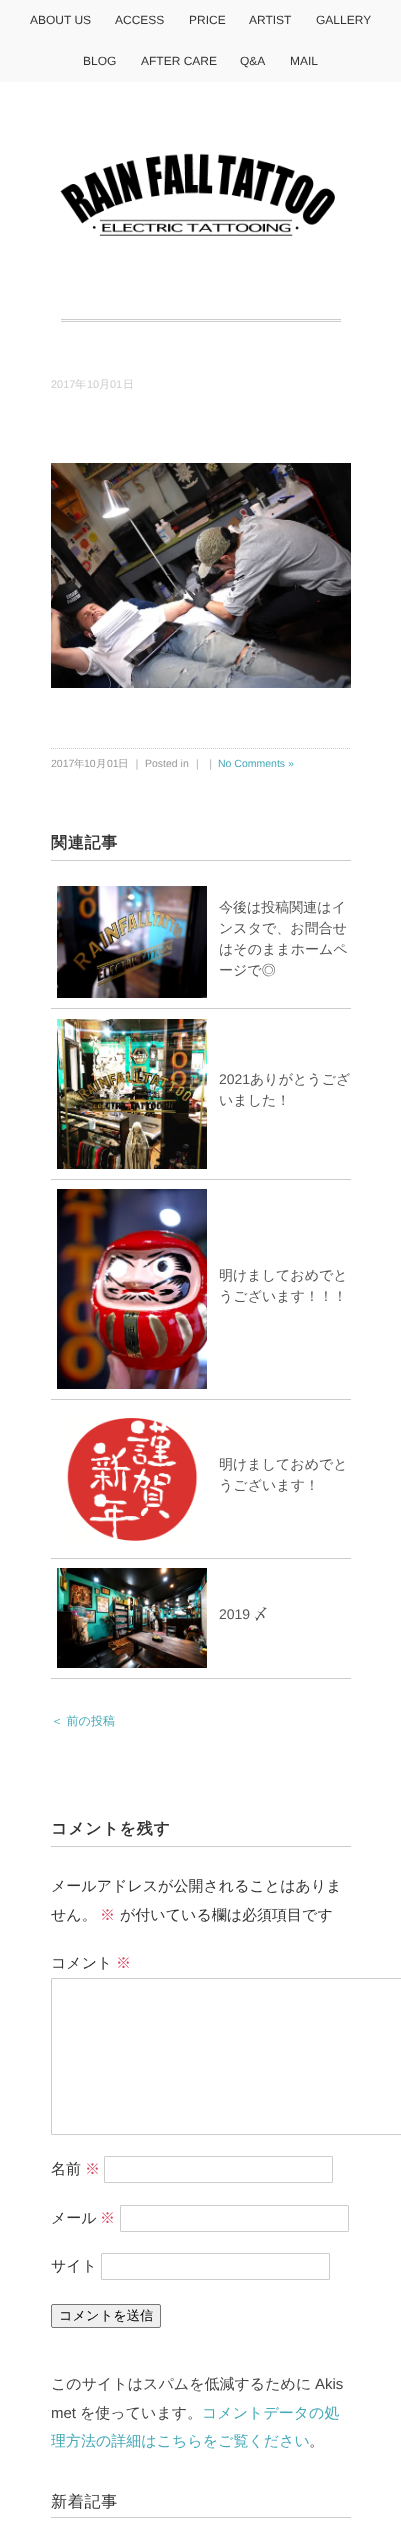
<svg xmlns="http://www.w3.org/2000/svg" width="401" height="2541">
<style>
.a{font:12px Liberation Sans;fill:#333}
.b{font:11px Liberation Sans;fill:#ccc}
.c{font:500 11px WenQuanYi Zen Hei;fill:#ccc}
.d{font:10.5px Liberation Sans;fill:#999}
.e{font:500 10.5px WenQuanYi Zen Hei;fill:#999}
.f{font:10.5px Liberation Sans;fill:#45aab8}
.g{font:bold 16px WenQuanYi Zen Hei;letter-spacing:0.75px;fill:#333}
.h{font:500 14px WenQuanYi Zen Hei;fill:#555}
.i{font:14px Liberation Sans;fill:#555}
.j{font:500 12px WenQuanYi Zen Hei;fill:#45aab8}
.k{font:500 15px WenQuanYi Zen Hei;fill:#333}
.l{font:500 15px WenQuanYi Zen Hei;fill:#da3e5a}
.m{font:500 13.25px WenQuanYi Zen Hei;fill:#000}
.n{font:500 15px WenQuanYi Zen Hei;fill:#444}
.o{font:15px Liberation Sans;fill:#444}
.p{font:500 15px WenQuanYi Zen Hei;fill:#45aab8}
.q{font:500 16px WenQuanYi Zen Hei;letter-spacing:0.75px;fill:#333}
</style>
<rect width="100%" height="100%" fill="#fff"/>
<path fill="#f9f9f9" d="M0 0h401v82H0z"/>
<image href="1.png" x="60" y="153" width="275" height="83"/>
<path fill="#ccc" d="M61 319h280v1H61z"/>
<path fill="#ccc" d="M61 321h280v1H61z"/>
<image href="2.png" x="51" y="463" width="300" height="225"/>
<path fill="none" stroke="#ccc" stroke-dasharray="1 1" d="M51 748.5h300"/>
<path fill="#ccc" d="M51 860h300v1H51z"/>
<path fill="#ccc" d="M51 1008h300v1H51z"/>
<image href="3.png" x="57" y="886" width="150" height="112"/>
<path fill="#ccc" d="M51 1179h300v1H51z"/>
<image href="4.png" x="57" y="1019" width="150" height="150"/>
<path fill="#ccc" d="M51 1399h300v1H51z"/>
<image href="5.png" x="57" y="1189" width="150" height="200"/>
<path fill="#ccc" d="M51 1558h300v1H51z"/>
<image href="6.png" x="67" y="1417" width="131" height="124"/>
<path fill="#ccc" d="M51 1678h300v1H51z"/>
<image href="7.png" x="57" y="1568" width="150" height="100"/>
<path fill="#ccc" d="M51 1846h300v1H51z"/>
<rect fill="none" stroke="#ccc" x="51.5" y="1978.5" width="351" height="156" rx="0.5"/>
<rect fill="none" stroke="#ccc" x="104.5" y="2156.5" width="228" height="26" rx="0.5"/>
<rect fill="none" stroke="#ccc" x="120.5" y="2205.5" width="228" height="26" rx="0.5"/>
<rect fill="none" stroke="#ccc" x="101.5" y="2253.5" width="228" height="26" rx="0.5"/>
<rect fill="#efefef" stroke="#767676" x="51.5" y="2304.5" width="109" height="23" rx="1.5"/>
<path fill="#ccc" d="M51 2517h300v1H51z"/>
<text class="a" x="30" y="24">ABOUT US</text>
<text class="a" x="115" y="24">ACCESS</text>
<text class="a" x="189" y="24">PRICE</text>
<text class="a" x="249" y="24">ARTIST</text>
<text class="a" x="316" y="24">GALLERY</text>
<text class="a" x="83" y="65">BLOG</text>
<text class="a" x="141" y="65">AFTER CARE</text>
<text class="a" x="240" y="65">Q&amp;A</text>
<text class="a" x="290" y="65">MAIL</text>
<text class="b" x="51" y="388">2017</text>
<text class="c" x="75" y="388">年</text>
<text class="b" x="87" y="388">10</text>
<text class="c" x="99" y="388">月</text>
<text class="b" x="110" y="388">01</text>
<text class="c" x="123" y="388">日</text>
<text class="d" x="51" y="767">2017</text>
<text class="e" x="74" y="767">年</text>
<text class="d" x="84" y="767">10</text>
<text class="e" x="96" y="767">月</text>
<text class="d" x="107" y="767">01</text>
<text class="e" x="118" y="767">日 ｜</text>
<text class="d" x="145" y="767">Posted in</text>
<text class="e" x="192" y="767">｜ ｜</text>
<text class="f" x="218" y="767">No Comments »</text>
<text class="g" x="51" y="848">関連記事</text>
<text class="h" x="219" y="912">今後は投稿関連はイ</text>
<text class="h" x="219" y="933">ンスタで、お問合せ</text>
<text class="h" x="219" y="954">はそのままホームペ</text>
<text class="h" x="219" y="975">ージで◎</text>
<text class="i" x="219" y="1084">2021</text>
<text class="h" x="250" y="1084">ありがとうござ</text>
<text class="h" x="219" y="1105">いました！</text>
<text class="h" x="219" y="1280">明けましておめでと</text>
<text class="h" x="219" y="1301">うございます！！！</text>
<text class="h" x="219" y="1469">明けましておめでと</text>
<text class="h" x="219" y="1490">うございます！</text>
<text class="i" x="219" y="1619">2019</text>
<text class="h" x="254" y="1619">〆</text>
<text class="j" x="51" y="1725">＜ 前の投稿</text>
<text class="g" x="51" y="1834">コメントを残す</text>
<text class="k" x="51" y="1891">メールアドレスが公開されることはありま</text>
<text class="k" x="51" y="1920">せん。</text>
<text class="l" x="100" y="1920">※</text>
<text class="k" x="120" y="1920">が付いている欄は必須項目です</text>
<text class="k" x="51" y="1968">コメント</text>
<text class="l" x="116" y="1968">※</text>
<text class="k" x="51" y="2174">名前</text>
<text class="l" x="85" y="2174">※</text>
<text class="k" x="51" y="2223">メール</text>
<text class="l" x="100" y="2223">※</text>
<text class="k" x="51" y="2271">サイト</text>
<text class="m" x="59" y="2320">コメントを送信</text>
<text class="n" x="51" y="2389">このサイトはスパムを低減するために</text>
<text class="o" x="315" y="2389">Akis</text>
<text class="o" x="51" y="2418">met</text>
<text class="n" x="80" y="2418">を使っています。</text>
<text class="p" x="202" y="2418">コメントデータの処</text>
<text class="p" x="51" y="2446">理方法の詳細はこちらをご覧ください</text>
<text class="n" x="309" y="2446">。</text>
<text class="q" x="51" y="2507">新着記事</text>
</svg>
